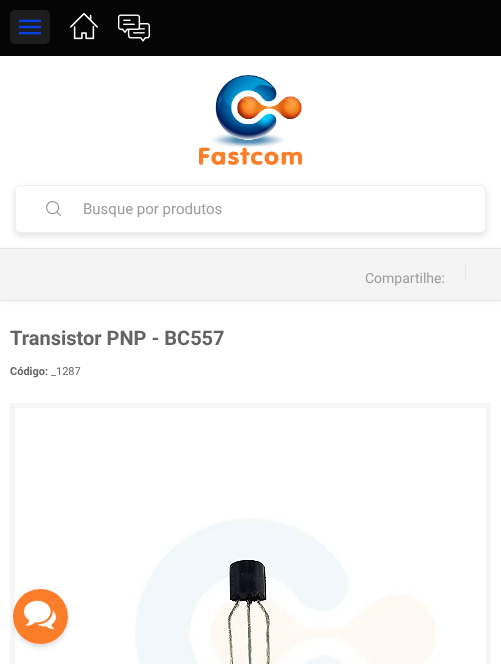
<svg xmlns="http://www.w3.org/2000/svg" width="501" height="664">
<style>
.a{font:15px Roboto;fill:#9c9c9c}
.b{font:14px Roboto;fill:#9c9c9c}
.c{font:bold 20px Roboto;fill:#646464}
.d{font:bold 11px Roboto;fill:#646464}
.e{font:11px Roboto;fill:#646464}
</style>
<rect width="100%" height="100%" fill="#fff"/>
<path fill="#050505" d="M0 0h501v56H0z"/>
<rect fill="#1d1d1d" x="10" y="10" width="40" height="34" rx="5"/>
<image href="1.png" x="19" y="19" width="22" height="16"/>
<image href="2.png" x="70" y="12" width="28" height="28"/>
<image href="3.png" x="118" y="14" width="32" height="28"/>
<image href="4.png" x="199" y="75" width="103" height="90"/>
<rect fill="#64646430" filter="blur(3px)" x="15" y="188" width="471" height="48" rx="5"/>
<rect fill="#fff" stroke="#efefef" x="15.5" y="185.5" width="470" height="47" rx="4.5"/>
<image href="5.png" x="46" y="201" width="15" height="15"/>
<path fill="#8989891f" filter="blur(2px)" d="M0 249h501v53H0z"/>
<path fill="#f4f4f4" d="M0 249h501v51H0z"/>
<path fill="#e6e6e6" d="M0 248h501v1H0z"/>
<path fill="#e6e6e6" d="M0 300h501v1H0z"/>
<path fill="#e6e6e6" d="M465 264h1v17H465z"/>
<path fill="none" stroke="#f6f6f6" stroke-width="5" d="M12.5 405.5h476v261H12.5z"/>
<image href="6.png" x="135" y="518" width="302" height="146"/>
<rect fill="#b7b7b780" filter="blur(2.5px)" x="14" y="594" width="53" height="53" rx="26.5"/>
<circle fill="#fc7d29" cx="40.5" cy="616.5" r="27.5"/>
<image href="7.png" x="24" y="600" width="32" height="30"/>
<text class="a" x="83" y="214">Busque por produtos</text>
<text class="b" x="365" y="283">Compartilhe:</text>
<text class="c" x="10" y="345">Transistor PNP - BC557</text>
<text class="d" x="10" y="375">Código:</text>
<text class="e" x="51" y="375">_1287</text>
</svg>
